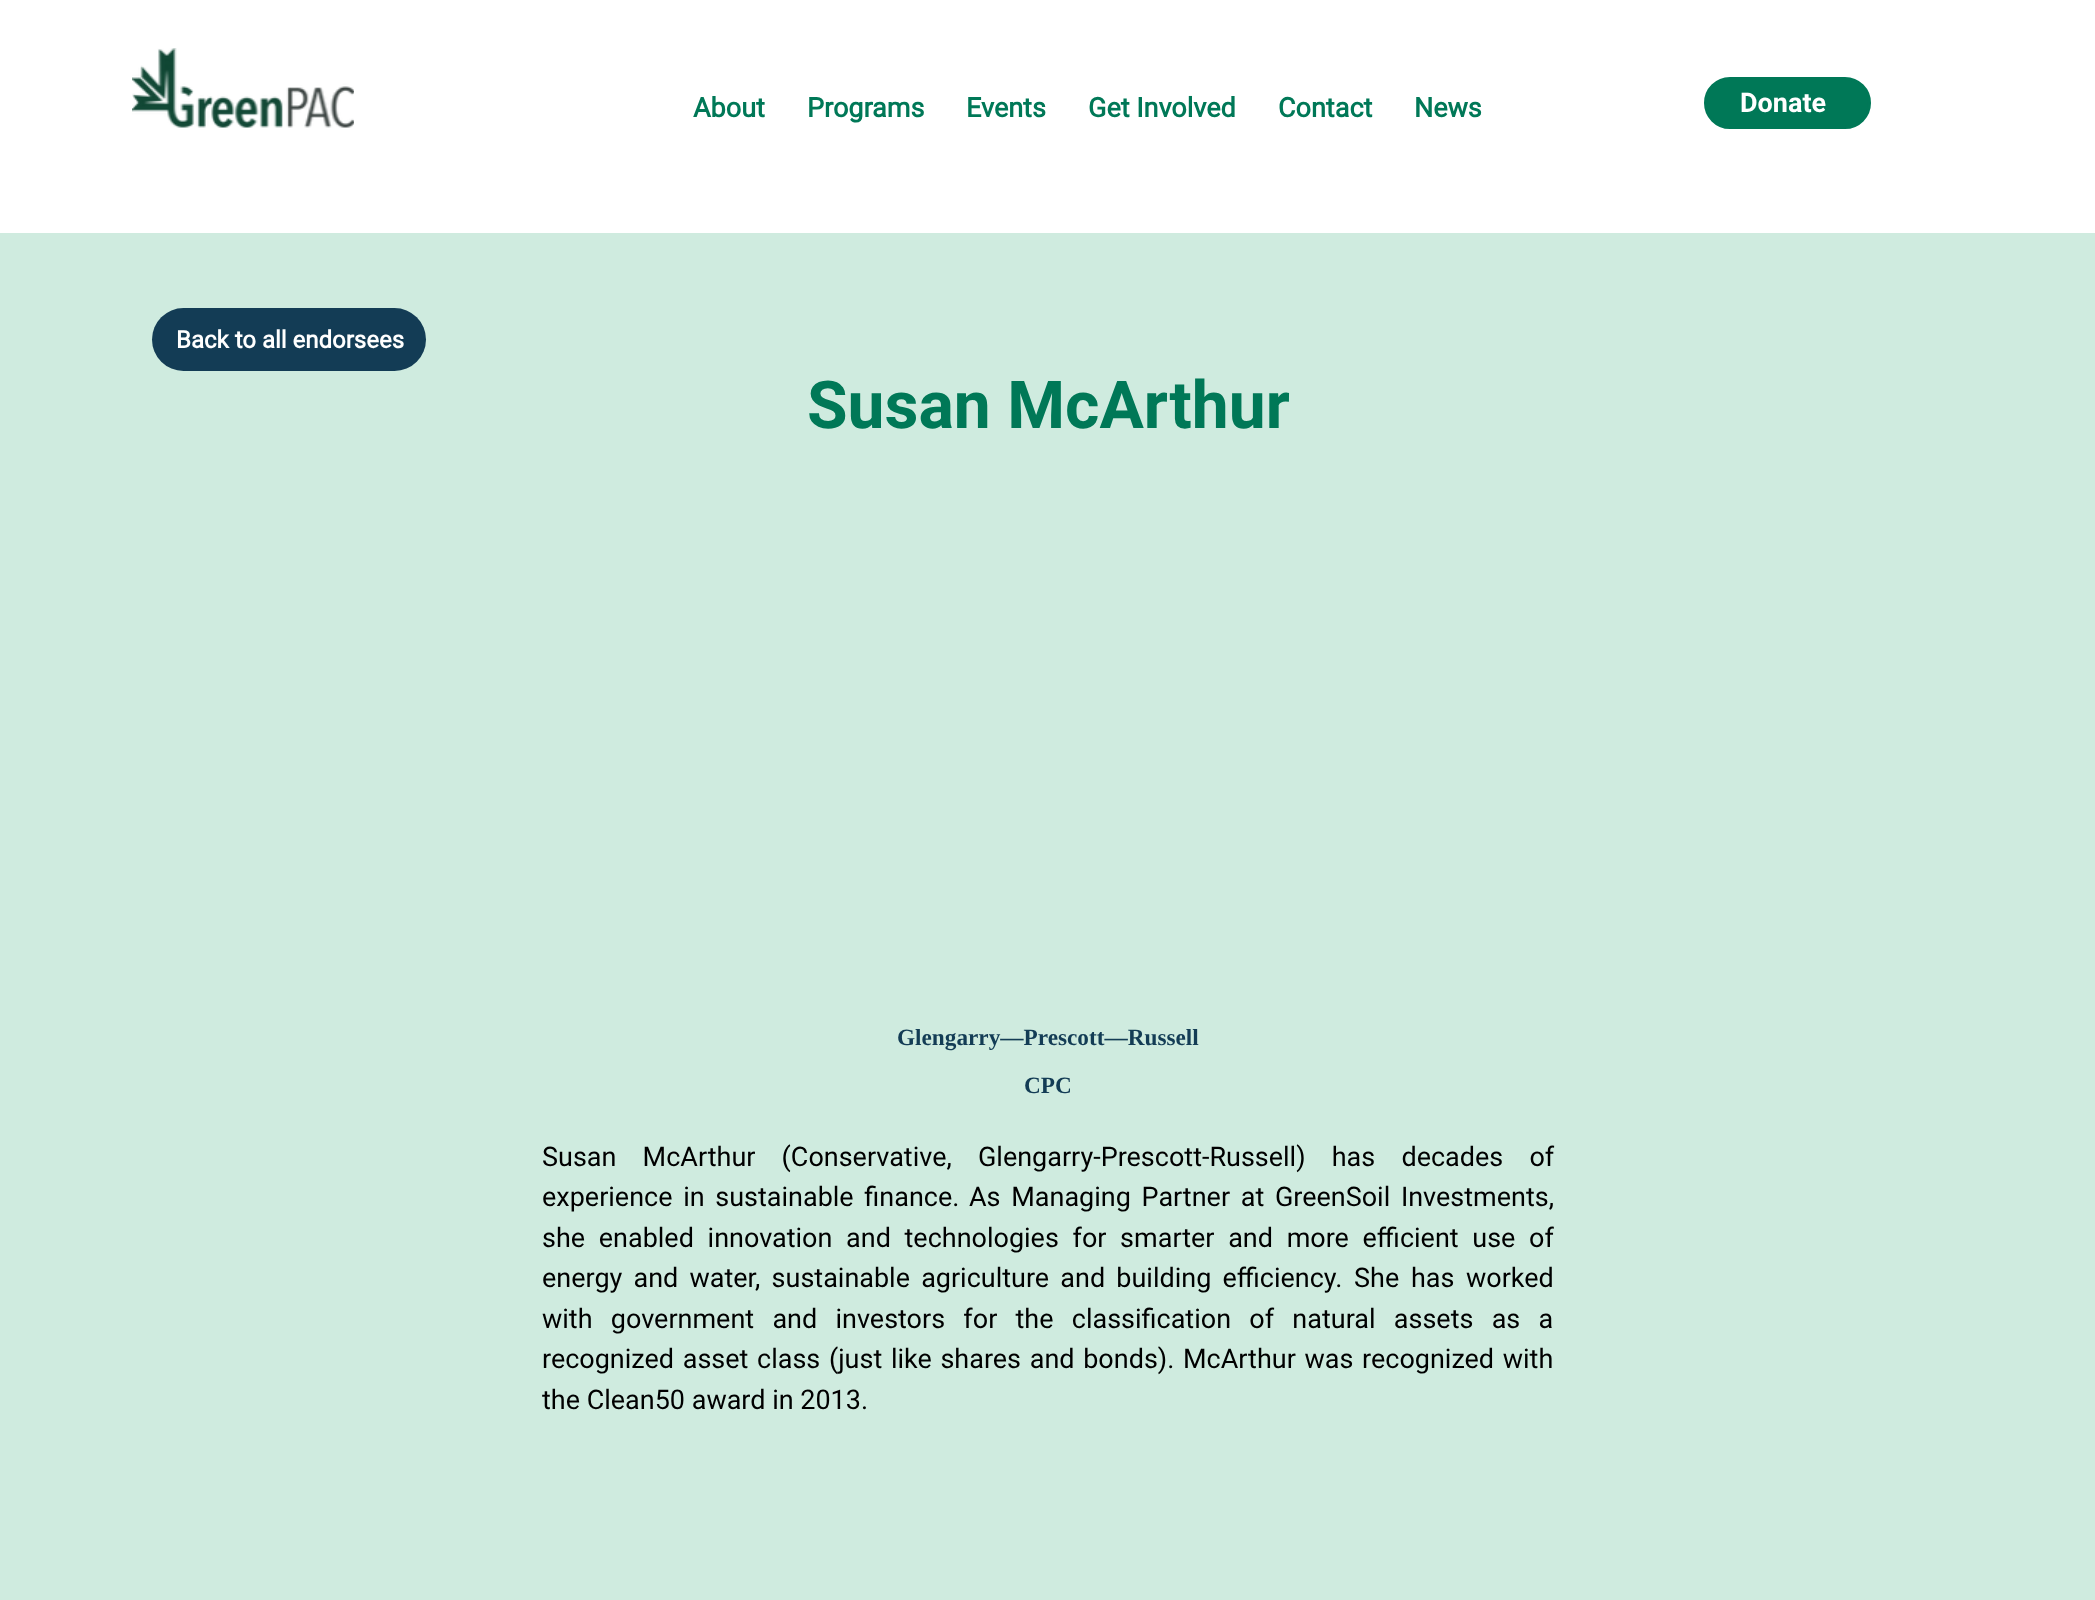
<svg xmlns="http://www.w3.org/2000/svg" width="2095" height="1600">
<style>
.a{font:bold 27px Roboto;fill:#007857}
.b{font:bold 27px 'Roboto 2';fill:#fff}
.c{font:bold 24px Roboto;fill:#fff}
.d{font:bold 66px 'Roboto 2';fill:#007857}
.e{font:bold 23.25px Liberation Serif;fill:#133c55}
.f{font:27px Roboto;fill:#000}
</style>
<rect width="100%" height="100%" fill="#fff"/>
<image href="1.png" x="132" y="48" width="222" height="80"/>
<rect fill="#007857" stroke="#007857" stroke-width="3" x="1705.5" y="78.5" width="164" height="49" rx="24.5"/>
<path fill="#cfebdf" d="M0 233h2095v1367H0z"/>
<rect fill="#133c55" x="152" y="308" width="274" height="63" rx="31.5"/>
<text class="a" x="693" y="117">About</text>
<text class="a" x="807" y="117">Programs</text>
<text class="a" x="966" y="117">Events</text>
<text class="a" x="1088" y="117">Get Involved</text>
<text class="a" x="1278" y="117">Contact</text>
<text class="a" x="1414" y="117">News</text>
<text class="b" x="1740" y="112">Donate</text>
<text class="c" x="176" y="348">Back to all endorsees</text>
<text class="d" x="807" y="428">Susan McArthur</text>
<text class="e" x="897" y="1045">Glengarry—Prescott—Russell</text>
<text class="e" x="1024" y="1093">CPC</text>
<text class="f" x="542" y="1166" word-spacing="19.5">Susan McArthur (Conservative, Glengarry-Prescott-Russell) has decades of</text>
<text class="f" x="542" y="1206" word-spacing="4">experience in sustainable finance.</text>
<text class="f" x="969" y="1206" word-spacing="4">As Managing Partner at GreenSoil Investments,</text>
<text class="f" x="542" y="1247" word-spacing="7">she enabled innovation and technologies for smarter and more efficient use of</text>
<text class="f" x="542" y="1287" word-spacing="4.5">energy and water, sustainable agriculture and building efficiency.</text>
<text class="f" x="1354" y="1287" word-spacing="5">She has worked</text>
<text class="f" x="542" y="1328" word-spacing="11.6">with government and investors for the classification of natural assets as a</text>
<text class="f" x="542" y="1368" word-spacing="2">recognized asset class (just like shares and bonds). McArthur was recognized with</text>
<text class="f" x="542" y="1409">the Clean50 award in 2013.</text>
</svg>
